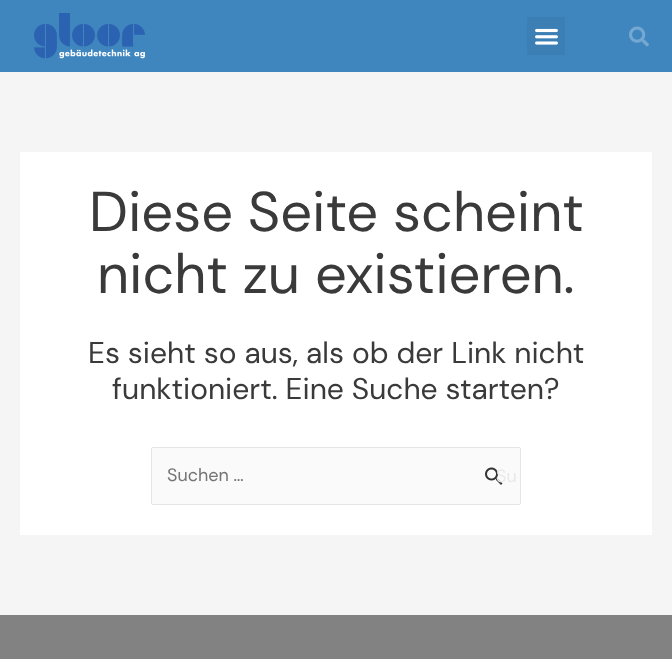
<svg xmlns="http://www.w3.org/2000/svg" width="672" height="659">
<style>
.a{font:56px DM Sans;fill:#3a3a3a}
.b{font:30px DM Sans;fill:#3a3a3a}
.c{font:18px DM Sans;fill:#757575}
.d{font:18px DM Sans;fill:#e9e9e9}
</style>
<rect width="100%" height="100%" fill="#f5f5f5"/>
<path fill="#3f86bf" d="M0 0h672v72H0z"/>
<image href="1.png" x="34" y="13" width="111" height="46"/>
<path fill="#3c7fb5" d="M527 17h38v38H527z"/>
<image href="2.png" x="535" y="28" width="23" height="17"/>
<image href="3.png" x="629" y="26" width="20" height="21"/>
<path fill="#fff" d="M20 152h632v383H20z"/>
<rect fill="#fafafa" stroke="#e5e5e5" x="151.5" y="447.5" width="369" height="57" rx="1.5"/>
<image href="4.png" x="485" y="467" width="18" height="18"/>
<path fill="#828282" d="M0 615h672v44H0z"/>
<text class="a" x="89" y="231">Diese Seite scheint</text>
<text class="a" x="97" y="293">nicht zu existieren.</text>
<text class="b" x="88" y="363">Es sieht so aus, als ob der Link nicht</text>
<text class="b" x="112" y="399">funktioniert. Eine Suche starten?</text>
<text class="c" x="167" y="481">Suchen …</text>
<text class="d" x="496" y="482">Su</text>
</svg>
